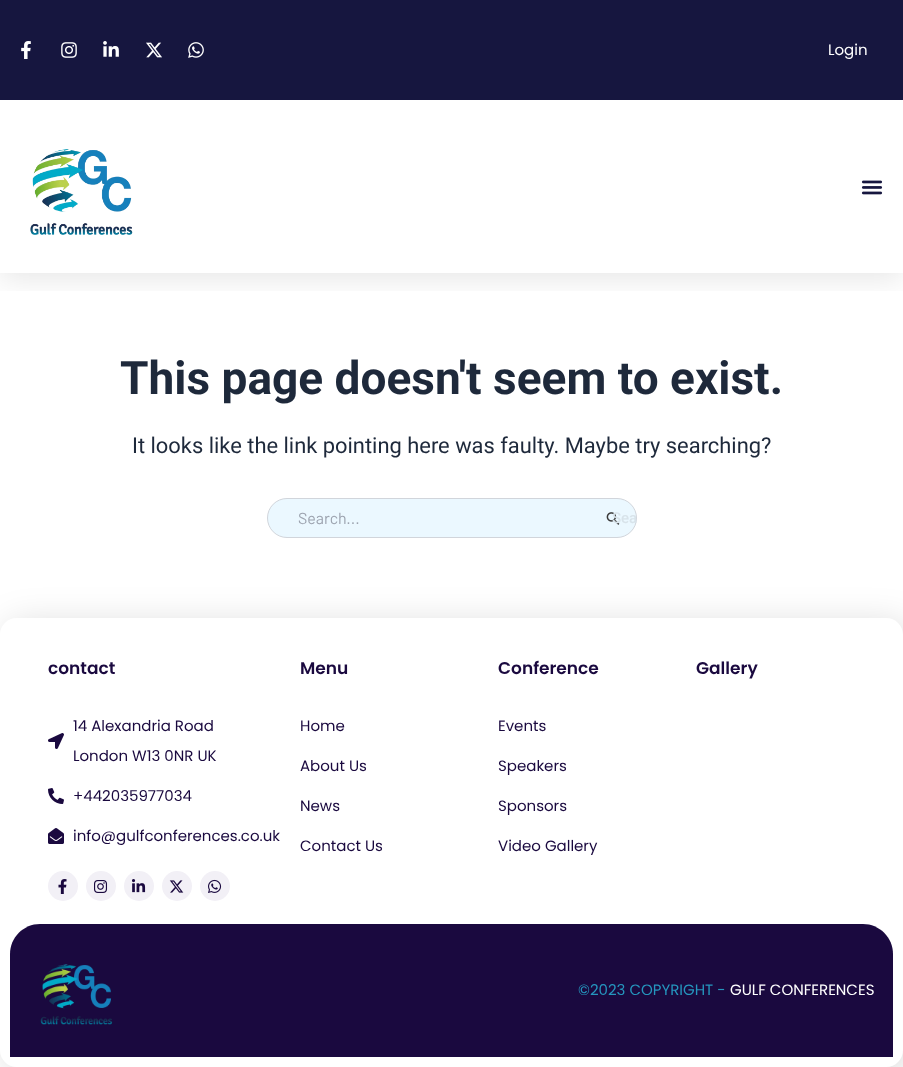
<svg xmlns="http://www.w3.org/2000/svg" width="903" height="1067">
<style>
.a{font:15px Poppins;fill:#fff}
.b{font:bold 46px Roboto;fill:#1e293b}
.c{font:21.9px Roboto;fill:#1e293b}
.d{font:16px Barlow;fill:#9ca3af}
.e{font:500 15px Roboto;fill:#d8e3ea}
.f{font:600 17px Poppins;fill:#1a093f}
.g{font:15px Poppins;fill:#1a093f}
.h{font:15px Poppins;fill:#2596be}
</style>
<defs>
<clipPath id="clip1"><path d="M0 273h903v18H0z"/></clipPath>
<clipPath id="clip2"><path d="M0 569h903v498h-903zm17 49h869c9.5 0 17 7.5 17 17v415c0 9.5-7.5 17-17 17h-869c-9.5 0-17-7.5-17-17v-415c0-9.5 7.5-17 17-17z" clip-rule="evenodd"/></clipPath>
</defs>
<rect width="100%" height="100%" fill="#fff"/>
<g clip-path="url(#clip1)">
<path fill="#0000001a" filter="blur(15px)" d="M0 5h903v273H0z"/>
</g>
<path fill="#16163f" d="M0 0h903v100H0z"/>
<image href="1.png" x="21" y="41" width="10" height="18"/>
<image href="2.png" x="61" y="42" width="16" height="16"/>
<image href="3.png" x="103" y="41" width="16" height="16"/>
<image href="4.png" x="146" y="42" width="16" height="16"/>
<image href="5.png" x="188" y="42" width="16" height="16"/>
<image href="6.png" x="30" y="149" width="103" height="86"/>
<image href="7.png" x="861" y="180" width="22" height="15"/>
<rect fill="#ebf8ff" stroke="#d1d5db" x="267.5" y="498.5" width="369" height="39" rx="19.5"/>
<image href="8.png" x="606" y="512" width="14" height="13"/>
<g clip-path="url(#clip2)">
<rect fill="#00000026" filter="blur(18px)" x="6" y="624" width="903" height="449" rx="17"/>
</g>
<image href="9.png" x="48" y="733" width="16" height="16"/>
<image href="10.png" x="48" y="788" width="16" height="16"/>
<image href="11.png" x="48" y="828" width="16" height="16"/>
<circle fill="#f2f0f6" cx="63" cy="886" r="15"/>
<image href="12.png" x="58" y="879" width="9" height="15"/>
<circle fill="#f2f0f6" cx="101" cy="886" r="15"/>
<image href="13.png" x="94" y="880" width="14" height="13"/>
<circle fill="#f2f0f6" cx="139" cy="886" r="15"/>
<image href="14.png" x="132" y="879" width="14" height="14"/>
<circle fill="#f2f0f6" cx="177" cy="886" r="15"/>
<image href="15.png" x="169" y="880" width="15" height="13"/>
<circle fill="#f2f0f6" cx="215" cy="886" r="15"/>
<image href="16.png" x="208" y="879" width="14" height="14"/>
<path fill="#1a093f" d="M40 924h823c16.5 0 30 13.5 30 30v103h-883v-103c0-16.5 13.5-30 30-30z"/>
<image href="17.png" x="40" y="964" width="73" height="61"/>
<text class="a" x="828" y="55">Login</text>
<text class="b" x="120" y="394">This page doesn't seem to exist.</text>
<text class="c" x="132" y="453">It looks like the link pointing here was faulty. Maybe try searching?</text>
<text class="d" x="298" y="524">Search...</text>
<text class="e" x="612" y="523">Sea</text>
<text class="f" x="48" y="674">contact</text>
<text class="g" x="73" y="731">14 Alexandria Road</text>
<text class="g" x="73" y="761">London W13 0NR UK</text>
<text class="g" x="73" y="801">+442035977034</text>
<text class="g" x="73" y="841">info@gulfconferences.co.uk</text>
<text class="f" x="300" y="674">Menu</text>
<text class="g" x="300" y="731">Home</text>
<text class="g" x="300" y="771">About Us</text>
<text class="g" x="300" y="811">News</text>
<text class="g" x="300" y="851">Contact Us</text>
<text class="f" x="498" y="674">Conference</text>
<text class="g" x="498" y="731">Events</text>
<text class="g" x="498" y="771">Speakers</text>
<text class="g" x="498" y="811">Sponsors</text>
<text class="g" x="498" y="851">Video Gallery</text>
<text class="f" x="696" y="674">Gallery</text>
<text class="h" x="578" y="995">©2023 COPYRIGHT -</text>
<text class="a" x="730" y="995">GULF CONFERENCES</text>
</svg>
